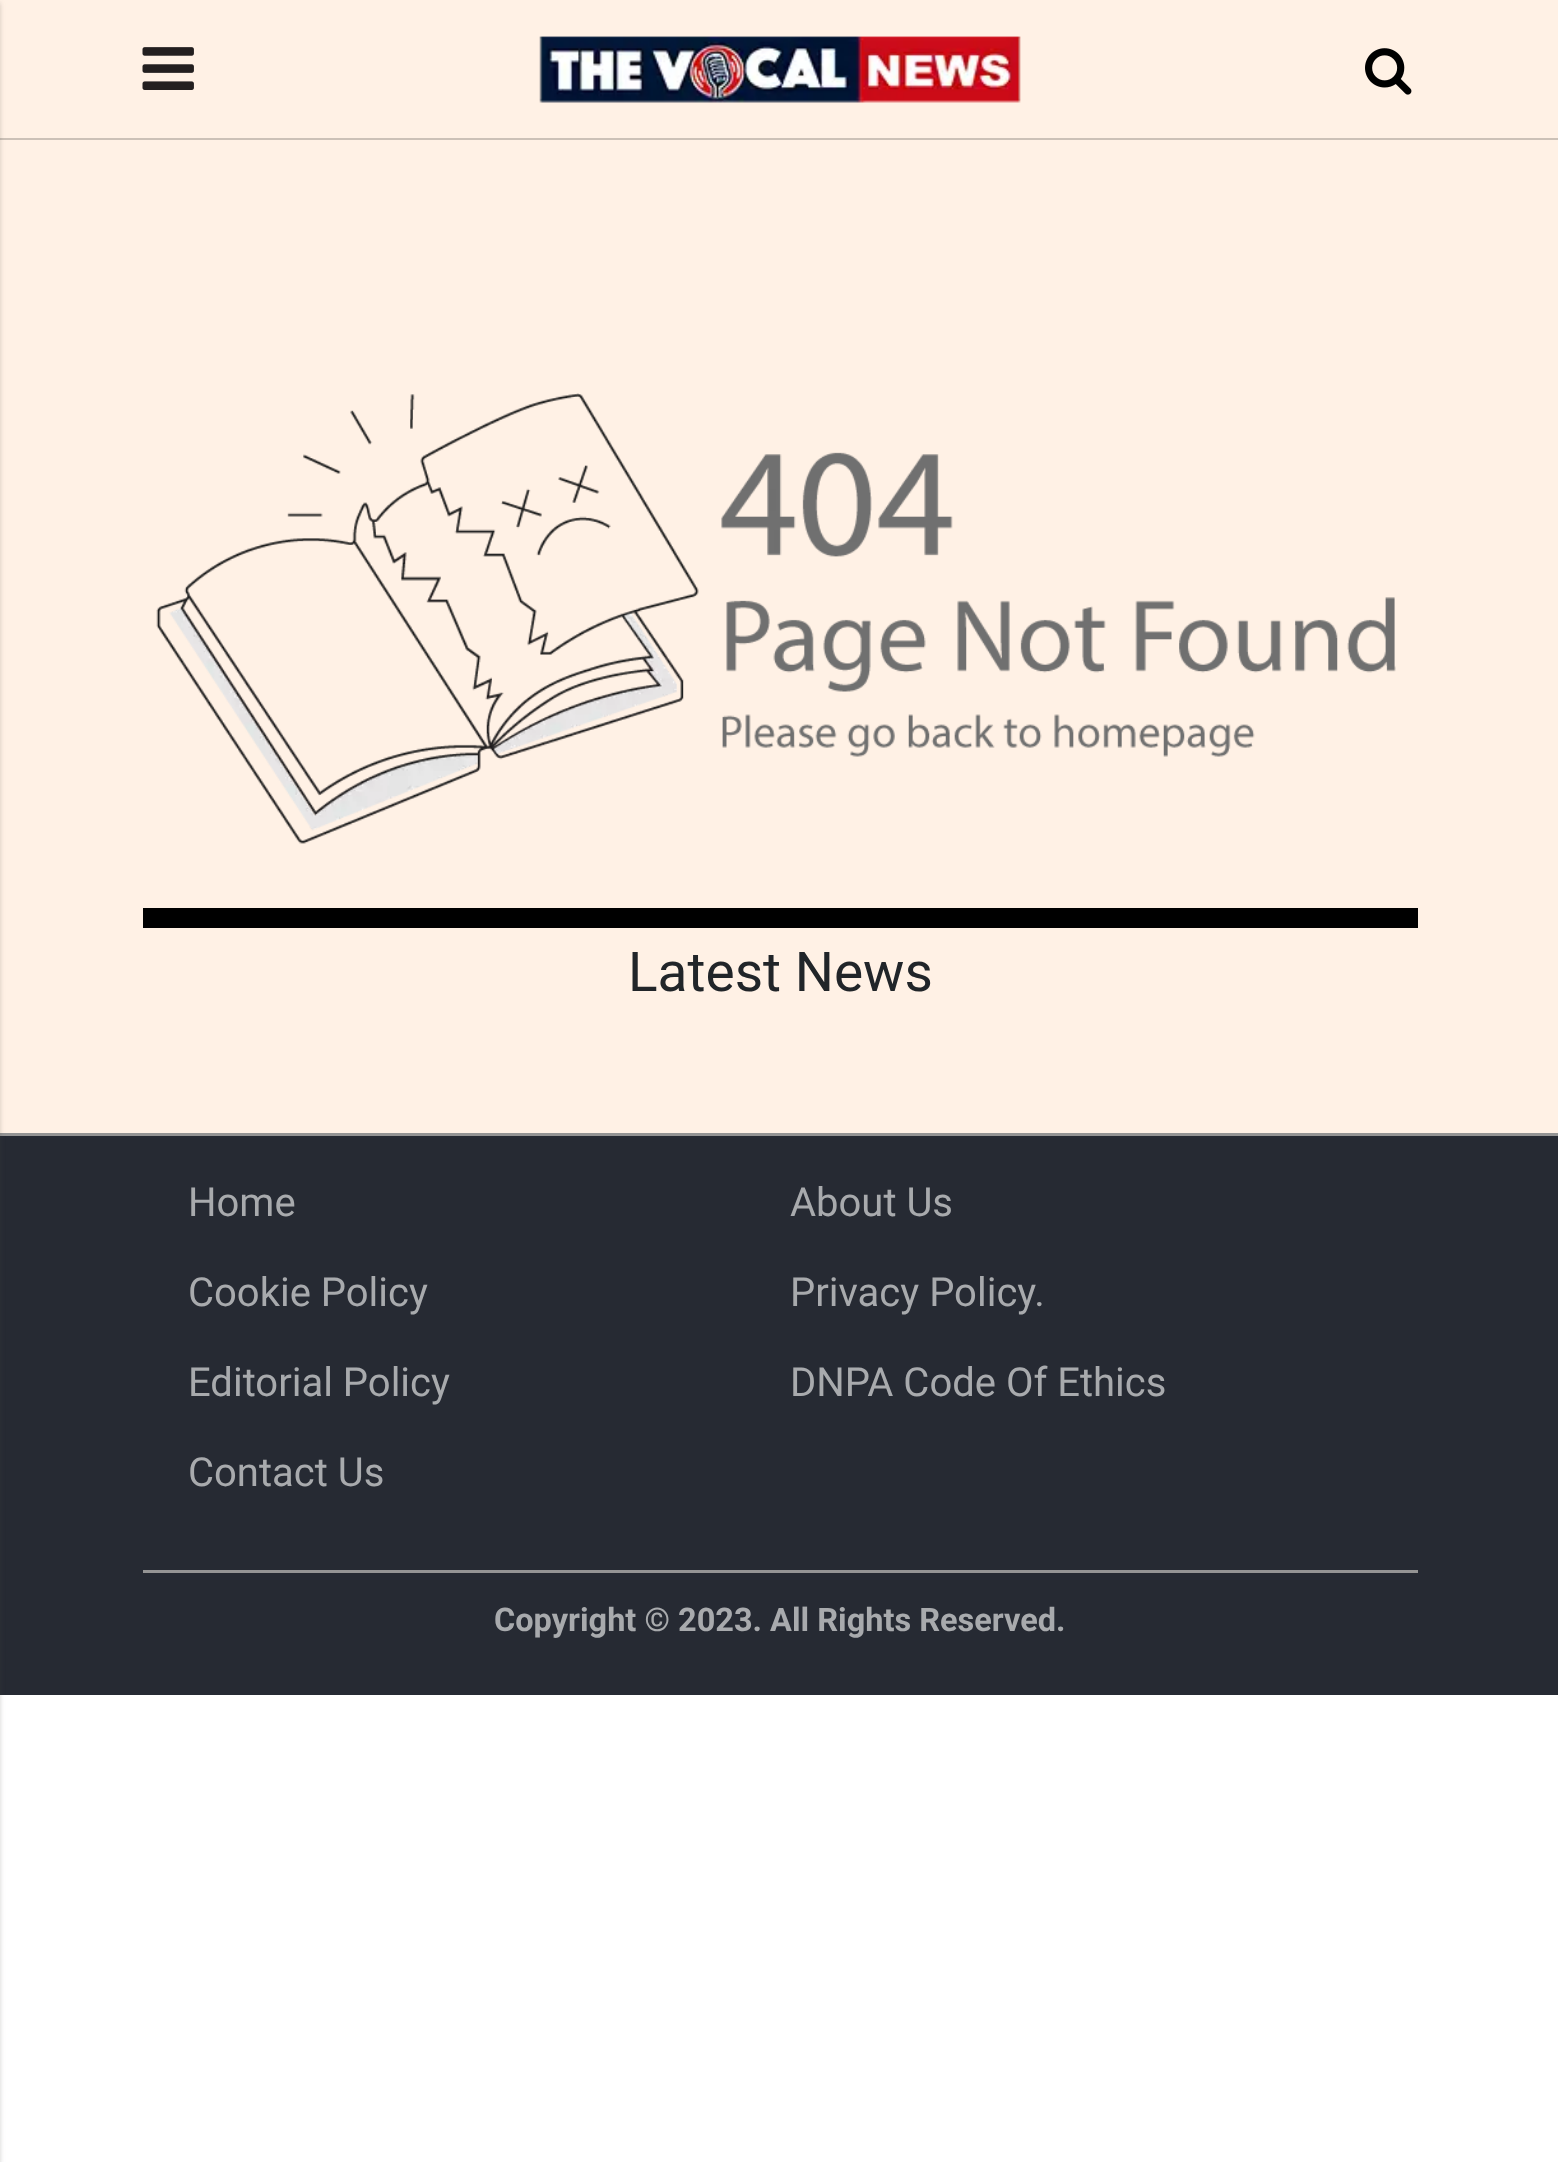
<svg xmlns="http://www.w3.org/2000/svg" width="1558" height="2162">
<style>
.a{font:55px Roboto;fill:#212529}
.b{font:40px Roboto;fill:#a8aaad}
.c{font:bold 32.5px Roboto;fill:#a8aaad}
</style>
<rect width="100%" height="100%" fill="#fff"/>
<path fill="#fff1e5" d="M0 0h1558v138H0z"/>
<path fill="#ccc1b7" d="M0 138h1558v2H0z"/>
<path fill="#fff1e5" d="M0 140h1558v993H0z"/>
<path fill="#262a33" d="M0 1136h1558v559H0z"/>
<path fill="#949494" d="M0 1133h1558v3H0z"/>
<path fill="#4d484540" filter="blur(2.5px)" d="M-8 3h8v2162H-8z"/>
<image href="1.png" x="539" y="36" width="482" height="67"/>
<image href="2.png" x="142" y="47" width="52" height="43"/>
<image href="3.png" x="1365" y="48" width="47" height="47"/>
<image href="4.png" x="156" y="393" width="1240" height="451"/>
<path fill="#000" d="M143 908h1275v20H143z"/>
<path fill="#949494" d="M143 1570h1275v3H143z"/>
<text class="a" x="628" y="991">Latest News</text>
<text class="b" x="188" y="1216">Home</text>
<text class="b" x="790" y="1216">About Us</text>
<text class="b" x="188" y="1306">Cookie Policy</text>
<text class="b" x="790" y="1306">Privacy Policy.</text>
<text class="b" x="188" y="1396">Editorial Policy</text>
<text class="b" x="790" y="1396">DNPA Code Of Ethics</text>
<text class="b" x="188" y="1486">Contact Us</text>
<text class="c" x="494" y="1631">Copyright © 2023. All Rights Reserved.</text>
</svg>
